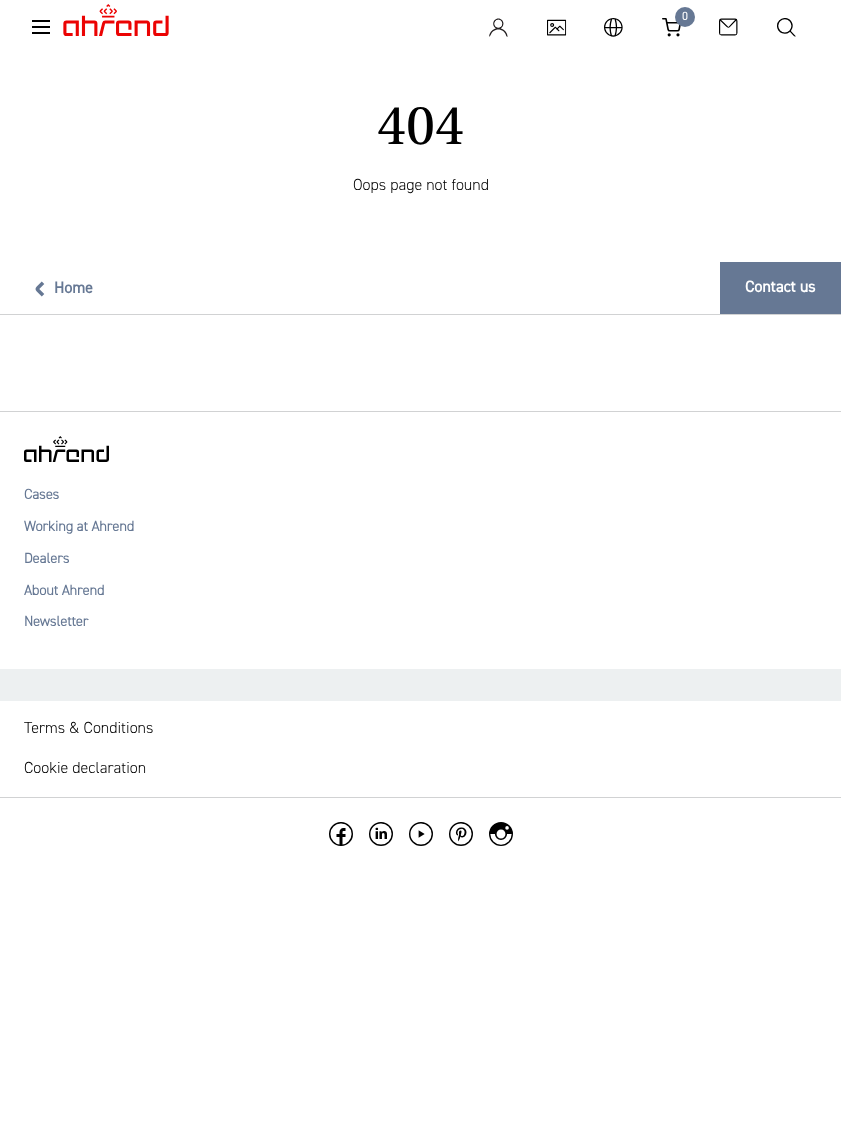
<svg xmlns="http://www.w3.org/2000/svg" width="841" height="1123">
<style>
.a{font:12px 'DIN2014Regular';fill:#fff}
.b{font:58px Utopia;fill:#000}
.c{font:16px 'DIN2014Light';fill:#000}
.d{font:bold 16px 'DIN2014Regular';fill:#667894}
.e{font:bold 16px 'DIN2014Regular';fill:#fff}
.f{font:bold 14.25px 'DIN2014Light';fill:#667894}
</style>
<rect width="100%" height="100%" fill="#fff"/>
<image href="1.png" x="63" y="4" width="106" height="32"/>
<image href="2.png" x="662" y="18" width="19" height="19"/>
<circle fill="#667894" cx="685" cy="17" r="10"/>
<image href="3.png" x="489" y="18" width="19" height="19"/>
<image href="4.png" x="547" y="19" width="20" height="17"/>
<image href="5.png" x="604" y="18" width="19" height="19"/>
<image href="6.png" x="719" y="18" width="19" height="18"/>
<image href="7.png" x="777" y="18" width="19" height="19"/>
<path fill="#000" d="M32 20h18v2H32z"/>
<path fill="#000" d="M32 26h18v2H32z"/>
<path fill="#000" d="M32 32h18v2H32z"/>
<path fill="#d1d2d3" d="M0 314h841v1H0z"/>
<image href="8.png" x="35" y="281" width="10" height="16"/>
<path fill="#667894" d="M720 262h121v52H720z"/>
<path fill="#d1d2d3" d="M0 411h841v1H0z"/>
<image href="9.png" x="24" y="436" width="85" height="26"/>
<path fill="#d1d2d3" d="M0 797h841v1H0z"/>
<path fill="#edf0f1" d="M0 669h841v32H0z"/>
<image href="10.png" x="329" y="822" width="24" height="24"/>
<image href="11.png" x="369" y="822" width="24" height="24"/>
<image href="12.png" x="409" y="822" width="24" height="24"/>
<image href="13.png" x="449" y="822" width="24" height="24"/>
<image href="14.png" x="489" y="822" width="24" height="24"/>
<text class="a" x="682" y="20">0</text>
<text class="b" x="377" y="144">404</text>
<text class="c" x="353" y="190">Oops page not found</text>
<text class="d" x="54" y="293">Home</text>
<text class="e" x="745" y="292">Contact us</text>
<text class="f" x="24" y="499">Cases</text>
<text class="f" x="24" y="531">Working at Ahrend</text>
<text class="f" x="24" y="563">Dealers</text>
<text class="f" x="24" y="595">About Ahrend</text>
<text class="f" x="24" y="626">Newsletter</text>
<text class="c" x="24" y="733">Terms &amp; Conditions</text>
<text class="c" x="24" y="773">Cookie declaration</text>
</svg>
